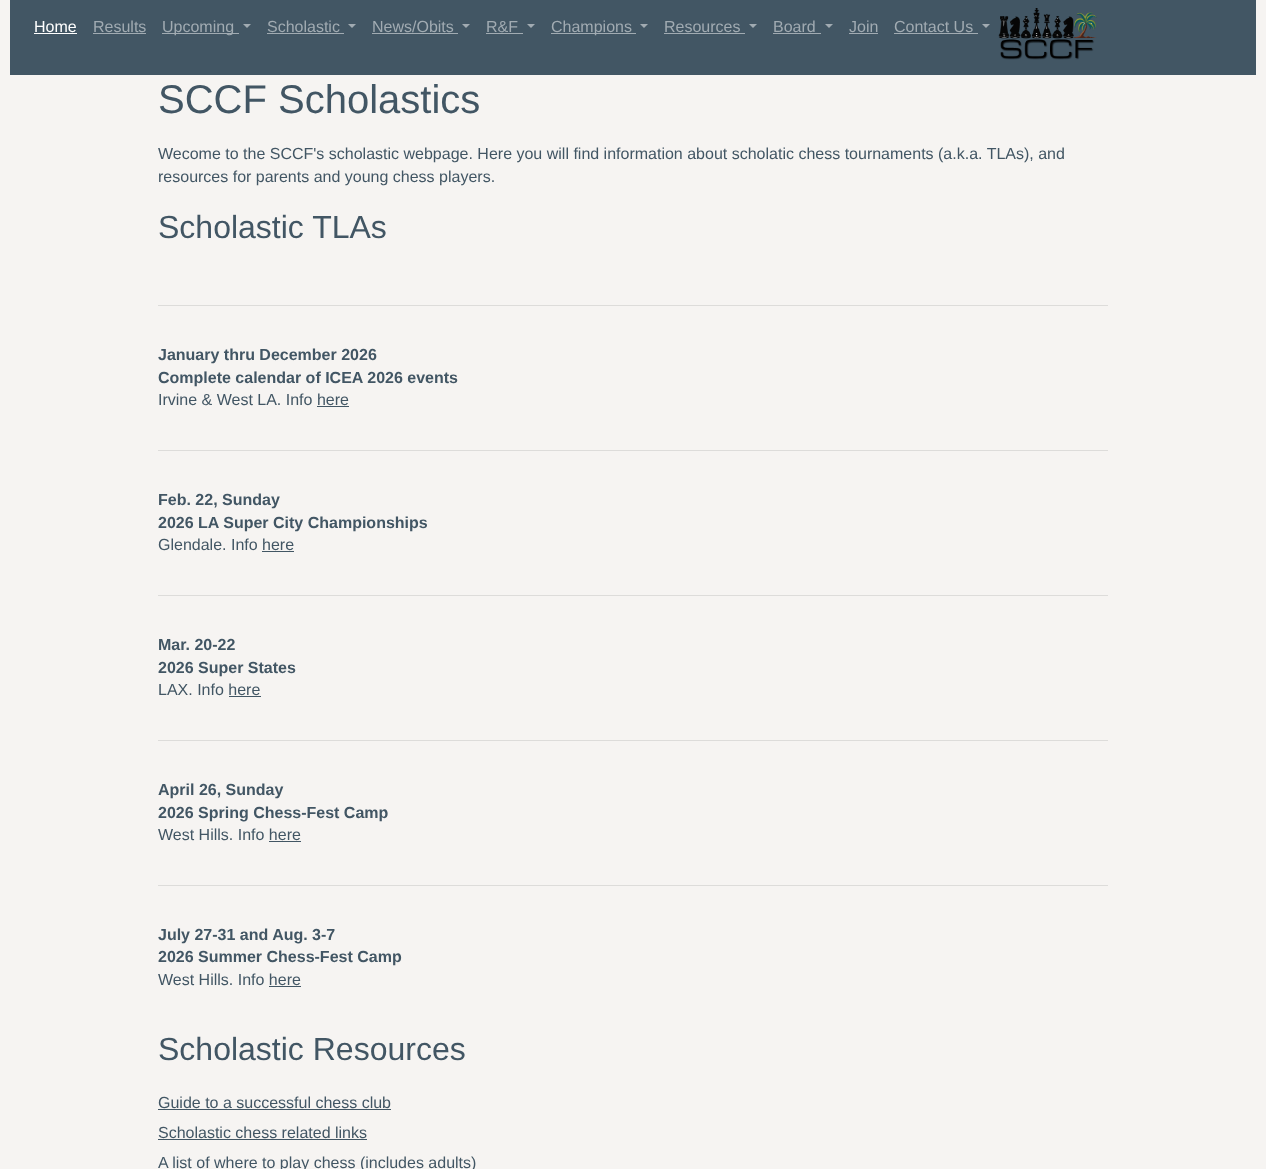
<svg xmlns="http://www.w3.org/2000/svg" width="1266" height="1169">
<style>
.a{font:16px Liberation Sans;fill:#fff}
.b{font:16px Liberation Sans;fill:#a1abb2}
.c{font:40px Liberation Sans;fill:#425664}
.d{font:16px Liberation Sans;fill:#425664}
.e{font:32px Liberation Sans;fill:#425664}
.f{font:bold 16px Liberation Sans;fill:#425664}
</style>
<rect width="100%" height="100%" fill="#f6f4f2"/>
<path fill="#425664" d="M10 0h1246v75H10z"/>
<path fill="#fff" d="M34 33h43v1H34z"/>
<path fill="#a1abb2" d="M93 33h53v1H93z"/>
<path fill="#a1abb2" d="M162 33h77v1H162z"/>
<path fill="#a1abb2" d="M243 24h8l-4 4z"/>
<path fill="#a1abb2" d="M267 33h77v1H267z"/>
<path fill="#a1abb2" d="M348 24h8l-4 4z"/>
<path fill="#a1abb2" d="M372 33h86v1H372z"/>
<path fill="#a1abb2" d="M462 24h8l-4 4z"/>
<path fill="#a1abb2" d="M486 33h37v1H486z"/>
<path fill="#a1abb2" d="M527 24h8l-4 4z"/>
<path fill="#a1abb2" d="M551 33h85v1H551z"/>
<path fill="#a1abb2" d="M640 24h8l-4 4z"/>
<path fill="#a1abb2" d="M664 33h81v1H664z"/>
<path fill="#a1abb2" d="M749 24h8l-4 4z"/>
<path fill="#a1abb2" d="M773 33h48v1H773z"/>
<path fill="#a1abb2" d="M825 24h8l-4 4z"/>
<path fill="#a1abb2" d="M849 33h29v1H849z"/>
<path fill="#a1abb2" d="M894 33h84v1H894z"/>
<path fill="#a1abb2" d="M982 24h8l-4 4z"/>
<image href="1.png" x="998" y="8" width="99" height="52"/>
<path fill="#dddcda" d="M158 305h950v1H158z"/>
<path fill="#425664" d="M317 406h32v1H317z"/>
<path fill="#dddcda" d="M158 450h950v1H158z"/>
<path fill="#425664" d="M262 551h32v1H262z"/>
<path fill="#dddcda" d="M158 595h950v1H158z"/>
<path fill="#425664" d="M229 696h32v1H229z"/>
<path fill="#dddcda" d="M158 740h950v1H158z"/>
<path fill="#425664" d="M269 841h32v1H269z"/>
<path fill="#dddcda" d="M158 885h950v1H158z"/>
<path fill="#425664" d="M269 986h32v1H269z"/>
<path fill="#425664" d="M158 1109h233v1H158z"/>
<path fill="#425664" d="M158 1139h209v1H158z"/>
<text class="a" x="34" y="32">Home</text>
<text class="b" x="93" y="32">Results</text>
<text class="b" x="162" y="32">Upcoming</text>
<text class="b" x="267" y="32">Scholastic</text>
<text class="b" x="372" y="32">News/Obits</text>
<text class="b" x="486" y="32">R&amp;F</text>
<text class="b" x="551" y="32">Champions</text>
<text class="b" x="664" y="32">Resources</text>
<text class="b" x="773" y="32">Board</text>
<text class="b" x="849" y="32">Join</text>
<text class="b" x="894" y="32">Contact Us</text>
<text class="c" x="158" y="113">SCCF Scholastics</text>
<text class="d" x="158" y="159">Wecome to the SCCF's scholastic webpage. Here you will find information about scholatic chess tournaments (a.k.a. TLAs), and</text>
<text class="d" x="158" y="182">resources for parents and young chess players.</text>
<text class="e" x="158" y="238">Scholastic TLAs</text>
<text class="f" x="158" y="360">January thru December 2026</text>
<text class="f" x="158" y="383">Complete calendar of ICEA 2026 events</text>
<text class="d" x="158" y="405">Irvine &amp; West LA. Info here</text>
<text class="f" x="158" y="505">Feb. 22, Sunday</text>
<text class="f" x="158" y="528">2026 LA Super City Championships</text>
<text class="d" x="158" y="550">Glendale. Info here</text>
<text class="f" x="158" y="650">Mar. 20-22</text>
<text class="f" x="158" y="673">2026 Super States</text>
<text class="d" x="158" y="695">LAX. Info here</text>
<text class="f" x="158" y="795">April 26, Sunday</text>
<text class="f" x="158" y="818">2026 Spring Chess-Fest Camp</text>
<text class="d" x="158" y="840">West Hills. Info here</text>
<text class="f" x="158" y="940">July 27-31 and Aug. 3-7</text>
<text class="f" x="158" y="962">2026 Summer Chess-Fest Camp</text>
<text class="d" x="158" y="985">West Hills. Info here</text>
<text class="e" x="158" y="1060">Scholastic Resources</text>
<text class="d" x="158" y="1108">Guide to a successful chess club</text>
<text class="d" x="158" y="1138">Scholastic chess related links</text>
<text class="d" x="158" y="1168">A list of where to play chess (includes adults)</text>
</svg>
